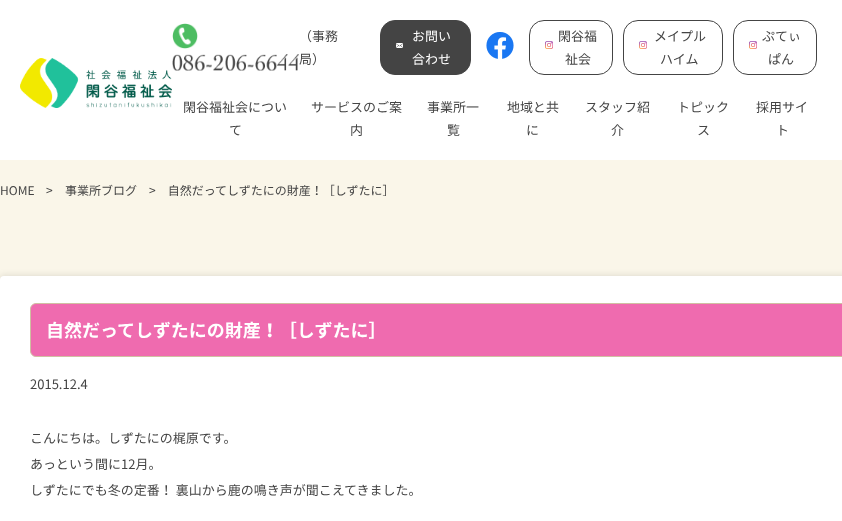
<svg xmlns="http://www.w3.org/2000/svg" width="842" height="521">
<style>
.a{font:13px Noto Sans JP;fill:#444}
.b{font:13px Noto Sans JP;fill:#fff}
.c{font:12px Noto Sans JP;fill:#444}
.d{font:bold 18px Noto Sans JP;fill:#fff}
</style>
<rect width="100%" height="100%" fill="#faf6e9"/>
<path fill="#fff" d="M0 0h842v160H0z"/>
<image href="1.png" x="20" y="58" width="152" height="50"/>
<image href="2.png" x="172" y="23" width="26" height="26"/>
<image href="3.png" x="172" y="54" width="127" height="17"/>
<rect fill="#444" stroke="#444" x="380.5" y="20.5" width="90" height="54" rx="14.5"/>
<image href="4.png" x="396" y="43" width="7" height="5"/>
<image href="5.png" x="486" y="32" width="28" height="27"/>
<rect fill="none" stroke="#444" x="529.5" y="20.5" width="83" height="54" rx="14.5"/>
<image href="6.png" x="545" y="41" width="8" height="8"/>
<rect fill="none" stroke="#444" x="623.5" y="20.5" width="99" height="54" rx="14.5"/>
<image href="7.png" x="639" y="41" width="8" height="8"/>
<rect fill="none" stroke="#444" x="733.5" y="20.5" width="83" height="54" rx="14.5"/>
<image href="6.png" x="749" y="41" width="8" height="8"/>
<rect fill="#0000001a" filter="blur(3px)" x="-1" y="275" width="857" height="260" rx="5"/>
<rect fill="#fff" y="276" width="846" height="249" rx="4"/>
<rect fill="#ef6baf" stroke="#d0bfa2" x="30.5" y="303.5" width="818" height="53" rx="5.5"/>
<text class="a" x="299" y="41">（事務</text>
<text class="a" x="299" y="64">局）</text>
<text class="b" x="412" y="41">お問い</text>
<text class="b" x="412" y="64">合わせ</text>
<text class="a" x="558" y="41">閑谷福</text>
<text class="a" x="565" y="64">祉会</text>
<text class="a" x="654" y="41">メイプル</text>
<text class="a" x="660" y="64">ハイム</text>
<text class="a" x="762" y="41">ぷてぃ</text>
<text class="a" x="768" y="64">ぱん</text>
<text class="a" x="183" y="112">閑谷福祉会につい</text>
<text class="a" x="229" y="135">て</text>
<text class="a" x="311" y="112">サービスのご案</text>
<text class="a" x="350" y="135">内</text>
<text class="a" x="427" y="112">事業所一</text>
<text class="a" x="447" y="135">覧</text>
<text class="a" x="507" y="112">地域と共</text>
<text class="a" x="526" y="135">に</text>
<text class="a" x="585" y="112">スタッフ紹</text>
<text class="a" x="611" y="135">介</text>
<text class="a" x="677" y="112">トピック</text>
<text class="a" x="697" y="135">ス</text>
<text class="a" x="756" y="112">採用サイ</text>
<text class="a" x="776" y="135">ト</text>
<text class="c" x="0" y="195">HOME</text>
<text class="c" x="46" y="195">&gt;</text>
<text class="c" x="65" y="195">事業所ブログ</text>
<text class="c" x="149" y="195">&gt;　自然だってしずたにの財産！［しずたに］</text>
<text class="d" x="46" y="337">自然だってしずたにの財産！［しずたに］</text>
<text class="a" x="30" y="389">2015.12.4</text>
<text class="a" x="30" y="443">こんにちは。しずたにの梶原です。</text>
<text class="a" x="30" y="469">あっという間に12月。</text>
<text class="a" x="30" y="495">しずたにでも冬の定番！ 裏山から鹿の鳴き声が聞こえてきました。</text>
</svg>
